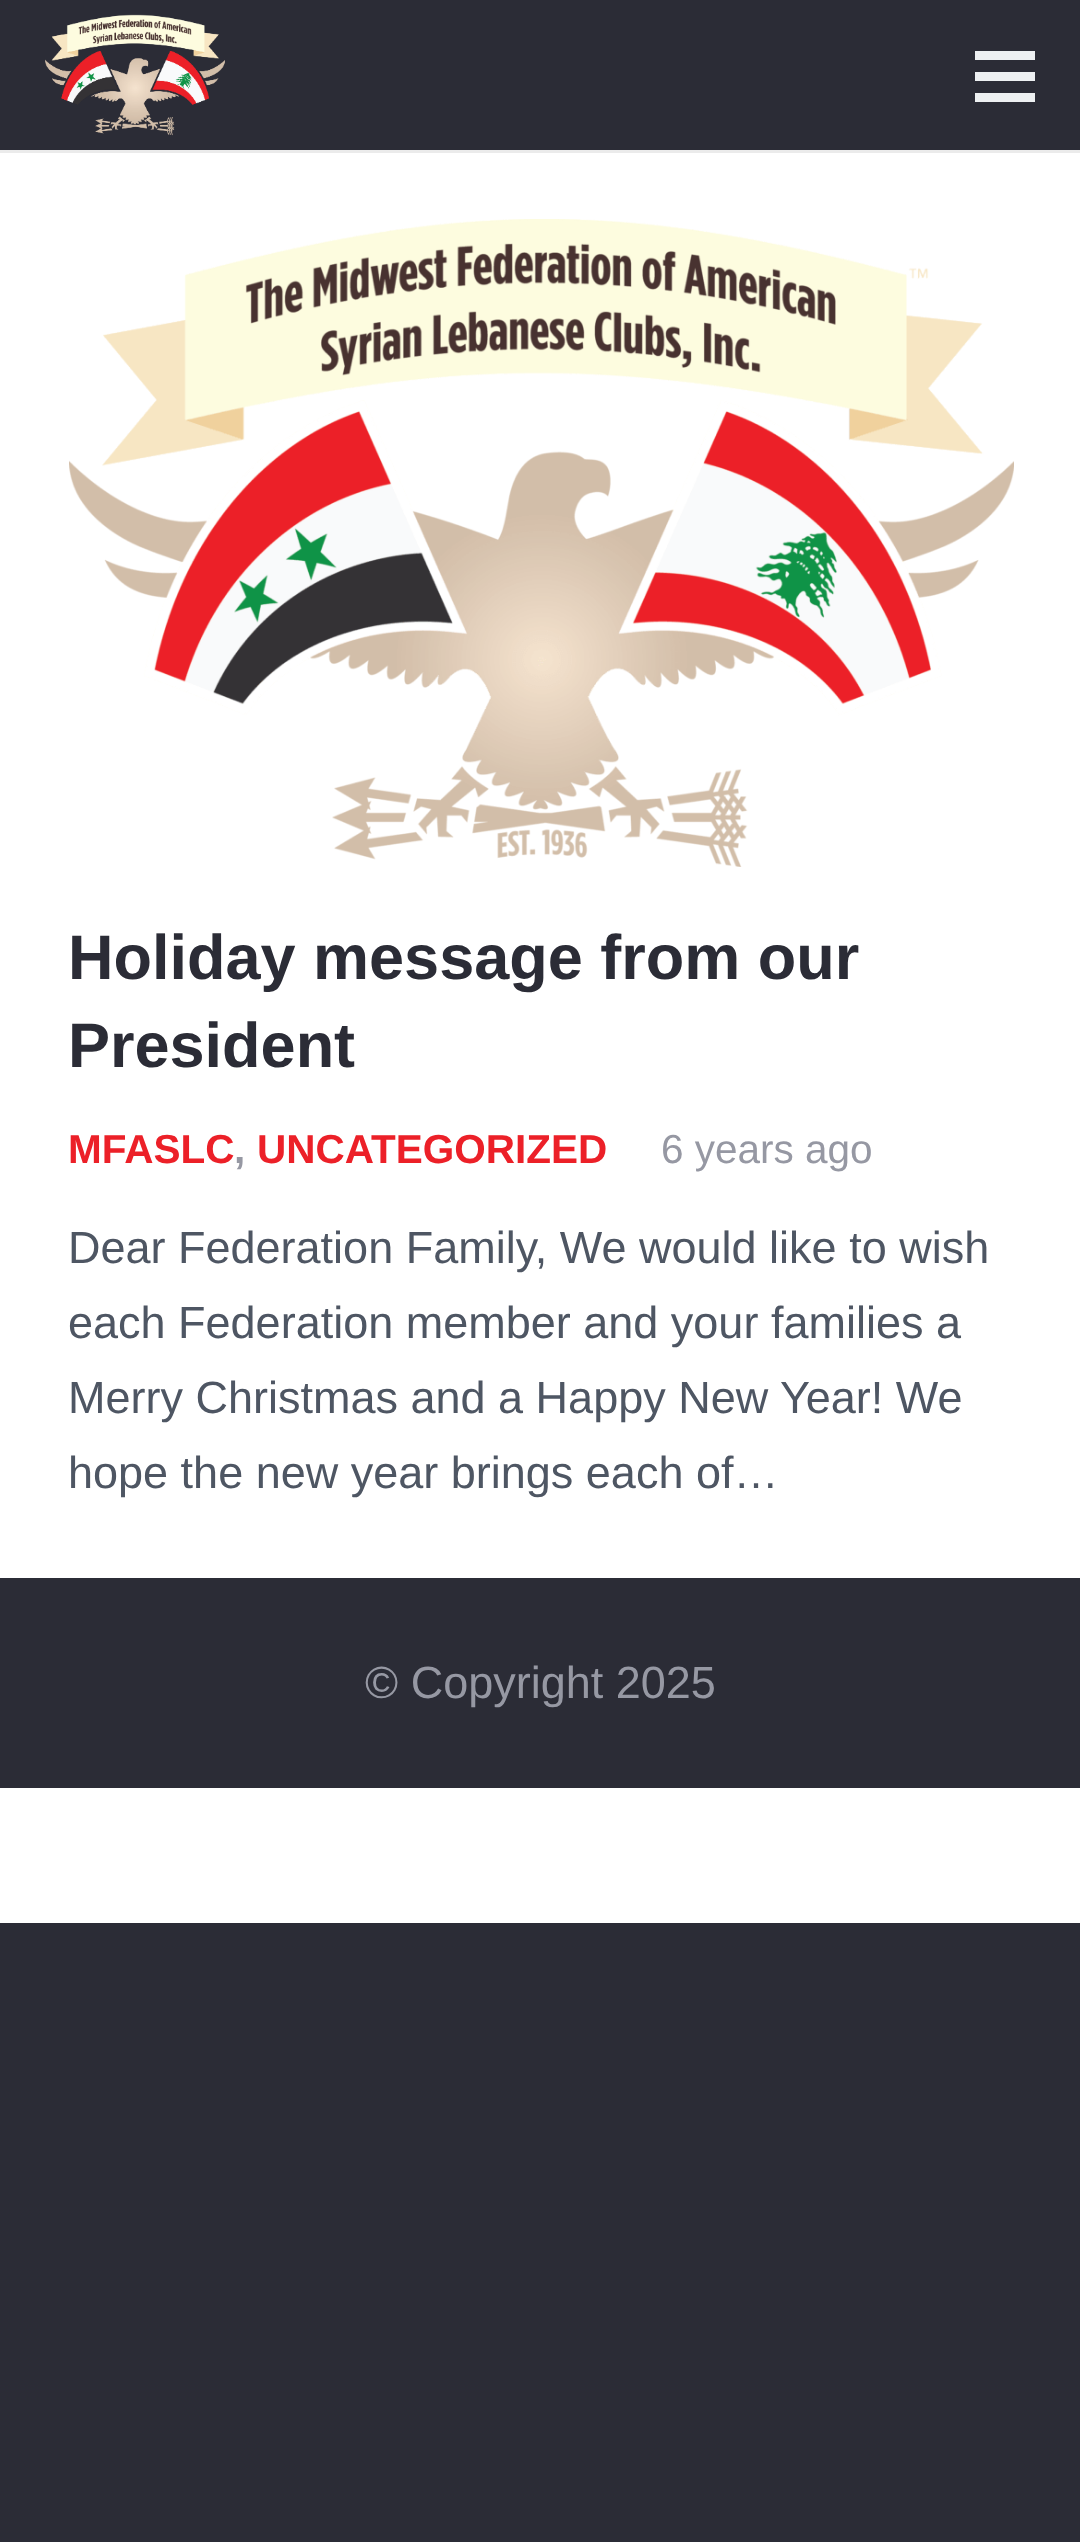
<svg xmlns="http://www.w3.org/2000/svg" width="1080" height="2542">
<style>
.a{font:bold 63px Liberation Sans;fill:#2b2c36}
.b{font:bold 40.5px Liberation Sans;fill:#ec2028}
.c{font:bold 40.5px Liberation Sans;fill:#9698a3}
.d{font:40.5px Liberation Sans;fill:#9698a3}
.e{font:45px Liberation Sans;fill:#4e5663}
.f{font:45px Liberation Sans;fill:#9698a3}
</style>
<rect width="100%" height="100%" fill="#2b2c36"/>
<path fill="#fff" d="M0 153h1080v1425H0z"/>
<path fill="#ebebeb" d="M0 150h1080v3H0z"/>
<image href="1.png" x="45" y="14" width="180" height="122"/>
<path fill="#edf0f2" d="M975 72h60v9H975z"/>
<path fill="#edf0f2" d="M975 51h60v9H975z"/>
<path fill="#edf0f2" d="M975 93h60v9H975z"/>
<image href="2.png" x="69" y="219" width="945" height="648"/>
<path fill="#fff" d="M0 1788h1080v135H0z"/>
<text class="a" x="68" y="979">Holiday message from our</text>
<text class="a" x="68" y="1067">President</text>
<text class="b" x="68" y="1163">MFASLC</text>
<text class="c" x="234" y="1163">,</text>
<text class="b" x="257" y="1163">UNCATEGORIZED</text>
<text class="d" x="661" y="1163">6 years ago</text>
<text class="e" x="68" y="1263">Dear Federation Family, We would like to wish</text>
<text class="e" x="68" y="1338">each Federation member and your families a</text>
<text class="e" x="68" y="1413">Merry Christmas and a Happy New Year! We</text>
<text class="e" x="68" y="1488">hope the new year brings each of…</text>
<text class="f" x="365" y="1698">© Copyright 2025</text>
</svg>
